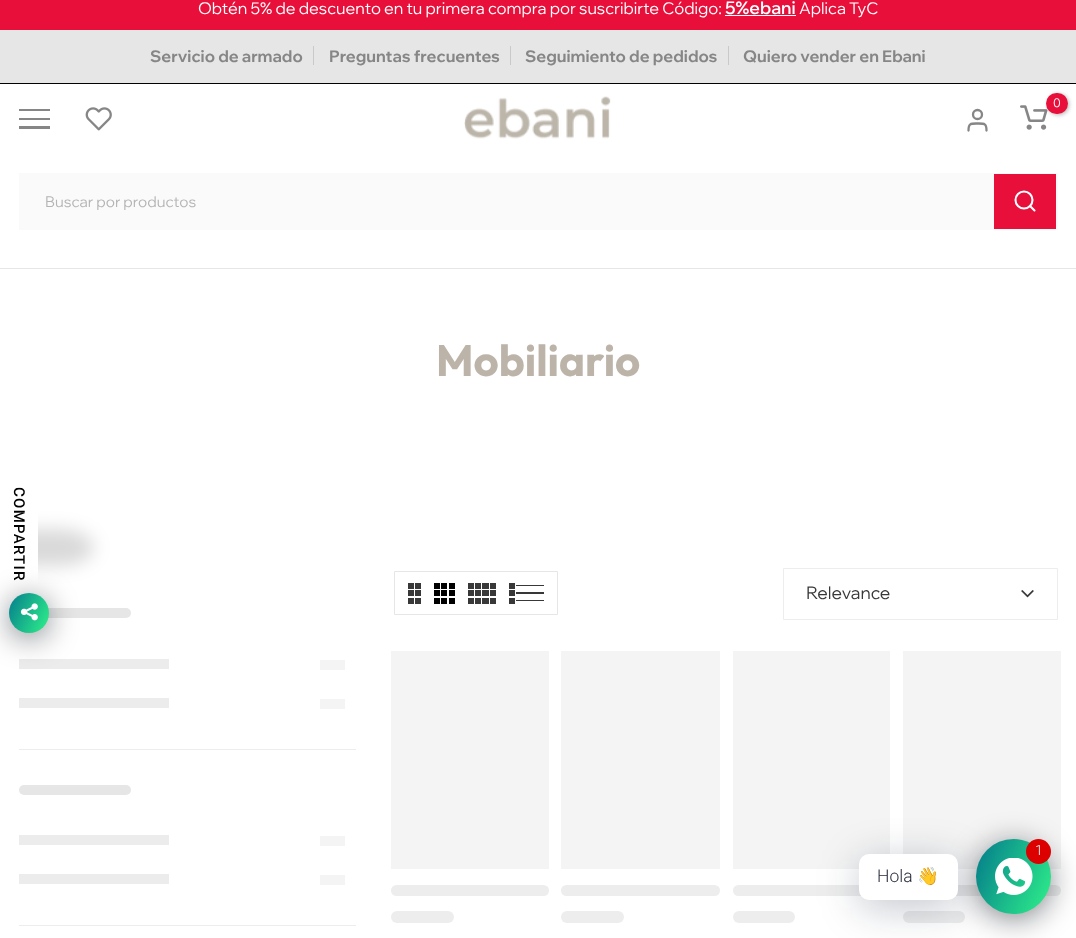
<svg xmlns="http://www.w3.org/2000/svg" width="1076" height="938">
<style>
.a{font:16.25px Wix Madefor Display;fill:#fff}
.b{font:600 17.5px Wix Madefor Display;fill:#fff}
.c{font:bold 16.25px Wix Madefor Display;fill:#868686}
.d{font:12px Wix Madefor Display;fill:#fff}
.e{font:15px Wix Madefor Display;fill:#b4b4b4}
.f{font:bold 43.75px Outfit;fill:#bdb4a9}
.g{font:17.5px Wix Madefor Display;fill:#383838}
.h{font:500 15px Roboto;letter-spacing:1.25px;fill:#000}
.i{font:300 14px Roboto;fill:#fff}
.j{font:300 17.5px Roboto;fill:#1e2433}
.k{font:17.5px Noto Color Emoji;fill:#1e2433}
</style>
<defs>
<linearGradient id="g1" gradientUnits="userSpaceOnUse" x1="4.7" y1="601" x2="53" y2="624"><stop offset="0" stop-color="#047c8d"/><stop offset="1" stop-color="#2ff289"/></linearGradient>
<linearGradient id="g2" gradientUnits="userSpaceOnUse" x1="969" y1="855" x2="1059" y2="897"><stop offset="0" stop-color="#047c8d"/><stop offset="1" stop-color="#2ff289"/></linearGradient>
<clipPath id="clip1"><path d="M37.5 487.5v94.5h-37.5v-94.5z"/></clipPath>
</defs>
<rect width="100%" height="100%" fill="#fff"/>
<path fill="#e8103b" d="M0 0h1076v30H0z"/>
<path fill="#fff" d="M725 15h71v1H725z"/>
<path fill="#e6e6e6" d="M0 30h1076v53H0z"/>
<path fill="#010101" d="M0 83h1076v1H0z"/>
<path fill="#c9c9c9" d="M313 46h1v19H313z"/>
<path fill="#c9c9c9" d="M510 46h1v19H510z"/>
<path fill="#c9c9c9" d="M728 46h1v19H728z"/>
<image href="1.png" x="464" y="96" width="147" height="43"/>
<image href="2.png" x="1020" y="105" width="28" height="25"/>
<rect fill="#0000004d" filter="blur(2px)" x="1048" y="94" width="21" height="21" rx="10.5"/>
<rect fill="#e8103b" x="1046" y="93" width="22" height="21" rx="10.5"/>
<circle fill="none" stroke="#868686" stroke-width="2.3" cx="977.5" cy="114.5" r="4.5"/>
<path fill="none" stroke="#868686" stroke-width="2.3" stroke-linecap="round" stroke-linejoin="round" d="M986.5 130.5c0-7.5-2.5-7-9-7c-6.5 0-9-.5-9 7"/>
<path fill="#868686" d="M19 109h31v2H19z"/>
<path fill="#868686" d="M19 118h31v2H19z"/>
<path fill="#868686" d="M19 126h31v3H19z"/>
<image href="3.png" x="85" y="107" width="27" height="24"/>
<path fill="#fafafa" d="M19 173h1039v57H19z"/>
<path fill="#e8103b" d="M994 174h62v55H994z"/>
<circle fill="none" stroke="#fff" stroke-width="2.1" cx="1024" cy="200" r="8.5"/>
<path fill="none" stroke="#fff" stroke-width="2.1" stroke-linecap="round" stroke-linejoin="round" d="M1034.5 210.5l-4.5-4.5"/>
<path fill="#e6e6e6" d="M0 268h1076v1H0z"/>
<path fill="none" stroke="#e6e6e6" d="M394.5 571.5h163v43H394.5z"/>
<image href="4.png" x="408" y="583" width="13" height="21"/>
<image href="5.png" x="434" y="583" width="21" height="21"/>
<image href="6.png" x="468" y="583" width="28" height="21"/>
<path fill="#383838" d="M509 583h6v6H509z"/>
<path fill="#383838" d="M509 590h6v6H509z"/>
<path fill="#383838" d="M509 598h6v6H509z"/>
<path fill="#383838" d="M516 585h28v1H516z"/>
<path fill="#383838" d="M516 592h28v2H516z"/>
<path fill="#383838" d="M516 600h28v1H516z"/>
<path fill="none" stroke="#ededed" d="M783.5 568.5h274v51H783.5z"/>
<image href="7.png" x="1021" y="590" width="13" height="8"/>
<path fill="#f4f4f4" d="M391 651h158v218H391z"/>
<rect fill="#ededed" x="391" y="885" width="158" height="11" rx="5.5"/>
<rect fill="#ededed" x="391" y="911" width="63" height="12" rx="6"/>
<path fill="#f4f4f4" d="M561 651h159v218H561z"/>
<rect fill="#ededed" x="561" y="885" width="159" height="11" rx="5.5"/>
<rect fill="#ededed" x="561" y="911" width="63" height="12" rx="6"/>
<path fill="#f4f4f4" d="M733 651h157v218H733z"/>
<rect fill="#ededed" x="733" y="885" width="157" height="11" rx="5.5"/>
<rect fill="#ededed" x="733" y="911" width="62" height="12" rx="6"/>
<path fill="#f4f4f4" d="M903 651h158v218H903z"/>
<rect fill="#ededed" x="903" y="885" width="158" height="11" rx="5.5"/>
<rect fill="#ededed" x="903" y="911" width="62" height="12" rx="6"/>
<path fill="#ededed" d="M19 749h337v1H19z"/>
<rect fill="#e6e6e6" x="19" y="608" width="112" height="10" rx="5"/>
<path fill="#ececec" d="M19 659h150v10H19z"/>
<path fill="#f4f4f4" d="M320 660h25v10H320z"/>
<path fill="#ececec" d="M19 698h150v10H19z"/>
<path fill="#f4f4f4" d="M320 699h25v10H320z"/>
<path fill="#ededed" d="M19 925h337v1H19z"/>
<rect fill="#e6e6e6" x="19" y="785" width="112" height="10" rx="5"/>
<path fill="#ececec" d="M19 835h150v10H19z"/>
<path fill="#f4f4f4" d="M320 836h25v10H320z"/>
<path fill="#ececec" d="M19 874h150v10H19z"/>
<path fill="#f4f4f4" d="M320 875h25v10H320z"/>
<rect fill="#00000026" filter="blur(9px)" x="-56" y="529" width="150" height="37" rx="35"/>
<path fill="#fff" d="M0 620v-151h32c3 0 6 2 6 5v111c0 19-16 35-36 35z"/>
<rect fill="#02061080" filter="blur(15px)" x="9" y="598" width="40" height="40" rx="20"/>
<circle fill="url(#g1)" cx="29" cy="613" r="20"/>
<image href="8.png" x="20" y="603" width="18" height="18"/>
<rect fill="#02061080" filter="blur(15px)" x="976" y="844" width="75" height="75" rx="37.5"/>
<circle fill="url(#g2)" cx="1013.5" cy="876.5" r="37.5"/>
<rect fill="#00122e3d" filter="blur(20px)" x="859" y="861" width="99" height="47" rx="10"/>
<image href="9.png" x="995" y="858" width="38" height="37"/>
<circle fill="#d00" cx="1038.5" cy="851.5" r="12.5"/>
<rect fill="#fff" x="859" y="854" width="99" height="46" rx="10"/>
<text class="a" x="198" y="14">Obtén 5% de descuento en tu primera compra por suscribirte Código:</text>
<text class="b" x="725" y="14">5%ebani</text>
<text class="a" x="799" y="14">Aplica TyC</text>
<text class="c" x="150" y="62">Servicio de armado</text>
<text class="c" x="329" y="62">Preguntas frecuentes</text>
<text class="c" x="525" y="62">Seguimiento de pedidos</text>
<text class="c" x="743" y="62">Quiero vender en Ebani</text>
<text class="d" x="1053" y="107">0</text>
<text class="e" x="45" y="207">Buscar por productos</text>
<text class="f" x="436" y="376">Mobiliario</text>
<text class="g" x="806" y="599">Relevance</text>
<g clip-path="url(#clip1)">
<text class="h" x="14" y="487" transform="rotate(90 14 487)">COMPARTIR</text>
</g>
<text class="i" x="1035" y="855">1</text>
<text class="j" x="877" y="882">Hola</text>
<text class="k" x="917" y="882">👋</text>
</svg>
